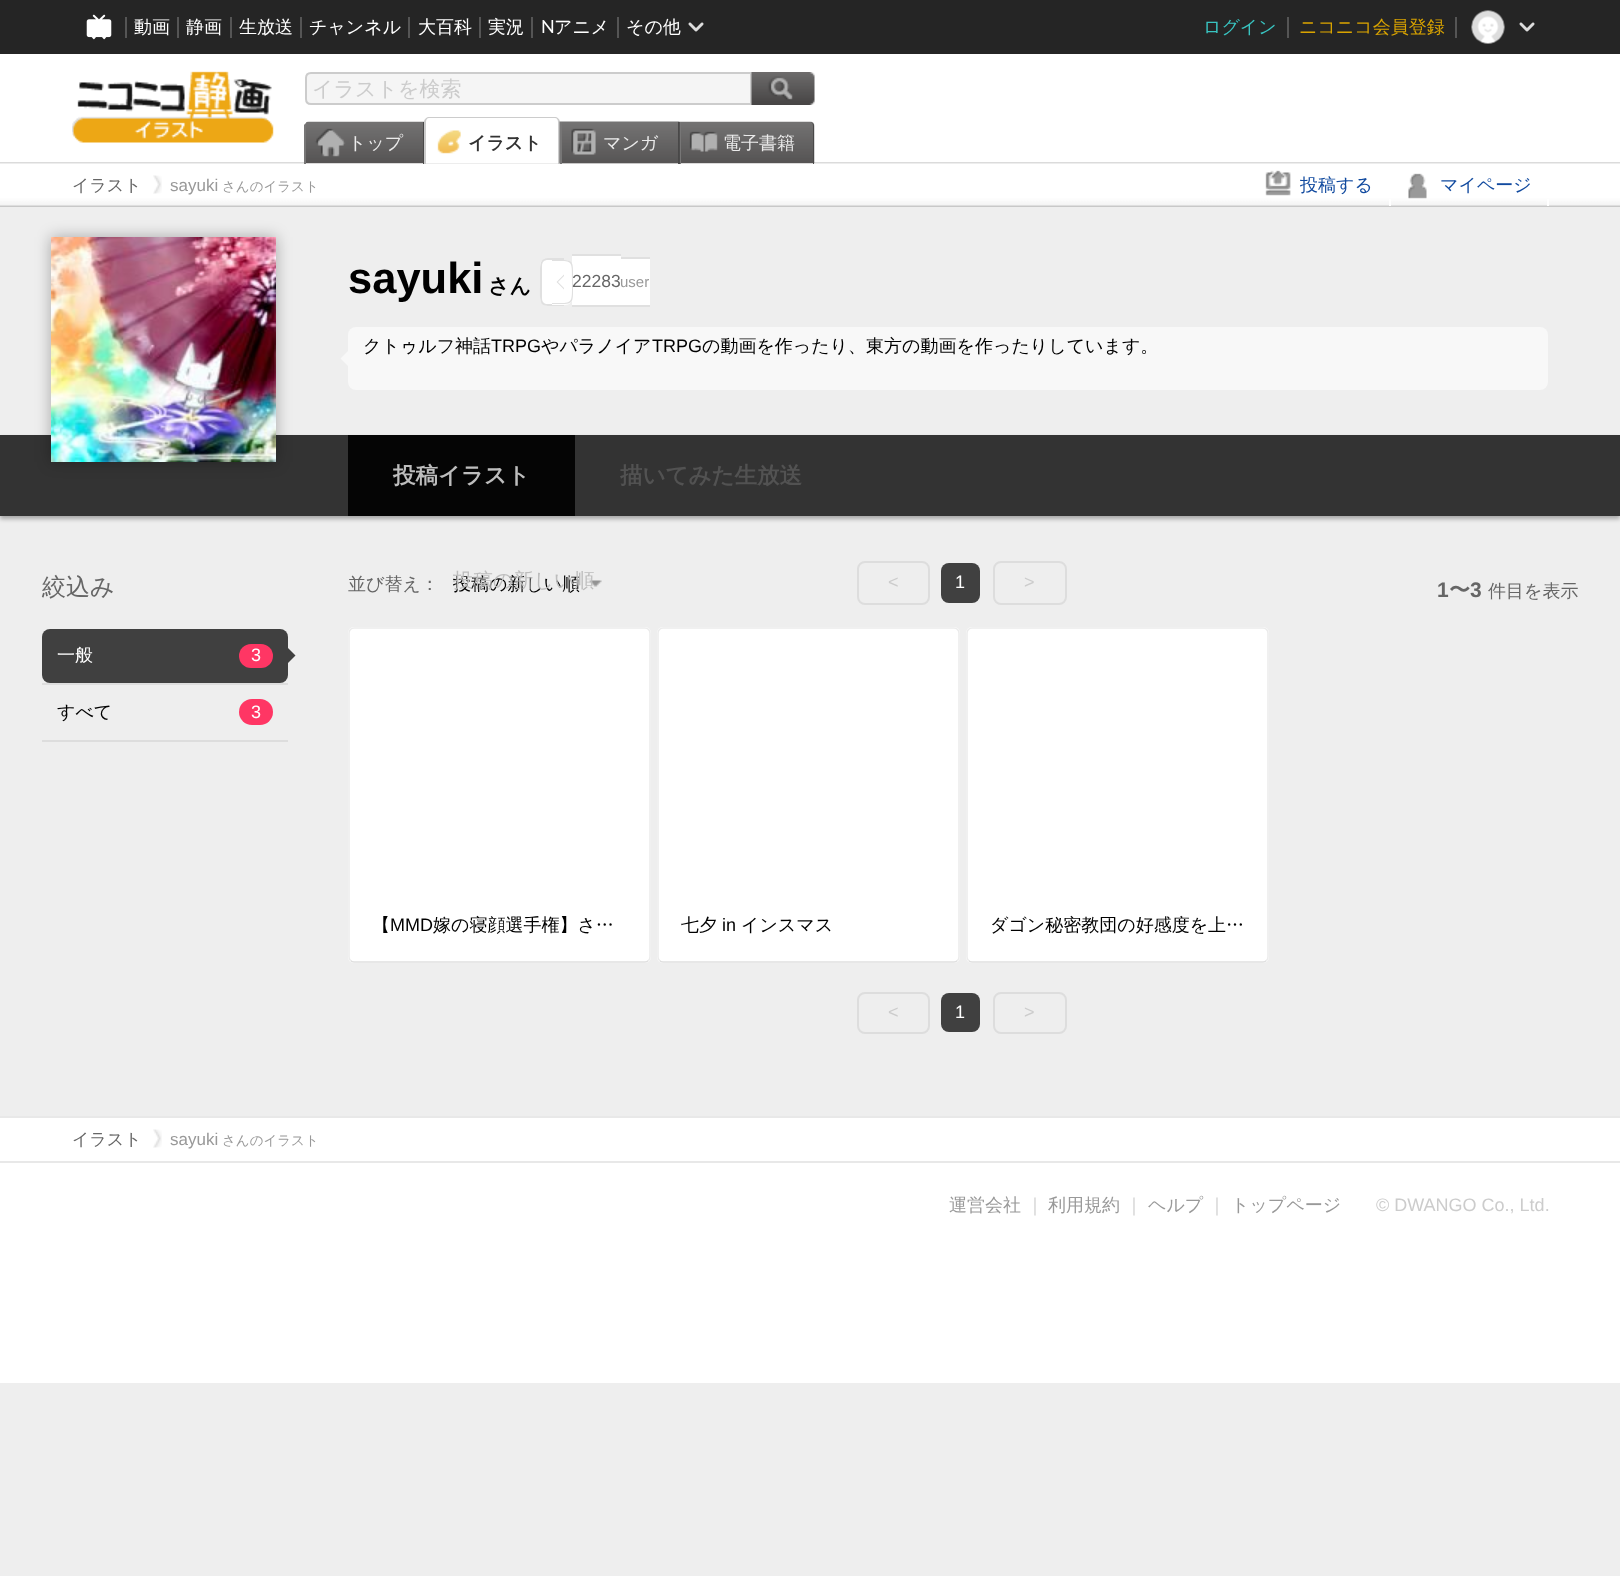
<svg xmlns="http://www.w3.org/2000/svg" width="1620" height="1576">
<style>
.a{font:500 18px WenQuanYi Zen Hei;fill:#fff}
.b{font:18px Lato;fill:#fff}
.c{font:500 18px WenQuanYi Zen Hei;fill:#39c4c1}
.d{font:500 18px WenQuanYi Zen Hei;fill:#d9a300}
.e{font:500 21px WenQuanYi Zen Hei;fill:#ccc}
.f{font:500 18px WenQuanYi Zen Hei;fill:#ebebeb}
.g{font:bold 18px WenQuanYi Zen Hei;fill:#333}
.h{font:500 17px WenQuanYi Zen Hei;fill:#666}
.i{font:17px Liberation Sans;fill:#999}
.j{font:500 13.5px WenQuanYi Zen Hei;fill:#999}
.k{font:500 18px WenQuanYi Zen Hei;fill:#114a9f}
.l{font:bold 43.5px Liberation Sans;fill:#000}
.m{font:17.5px Liberation Sans;fill:#666}
.n{font:15px Liberation Sans;fill:#999}
.o{font:500 18px WenQuanYi Zen Hei;fill:#000}
.p{font:18px Liberation Sans;fill:#000}
.q{font:bold 21px WenQuanYi Zen Hei;fill:#000}
.r{font:bold 22.5px WenQuanYi Zen Hei;fill:#bdbdbd}
.s{font:bold 22.5px WenQuanYi Zen Hei;fill:#525252}
.t{font:500 24px WenQuanYi Zen Hei;fill:#666}
.u{font:18px Liberation Sans;fill:#fff}
.v{font:500 18px WenQuanYi Zen Hei;fill:#666}
.w{font:500 20px WenQuanYi Zen Hei;fill:#bdbdbd}
.x{font:18px Liberation Sans;fill:#ccc}
.y{font:bold 21px Liberation Sans;fill:#666}
.z{font:bold 21px WenQuanYi Zen Hei;fill:#666}
.a1{font:500 18px WenQuanYi Zen Hei;fill:#999}
.b1{font:500 18px WenQuanYi Zen Hei;fill:#ccc}
</style>
<rect width="100%" height="100%" fill="#eee"/>
<path fill="#252525" d="M0 0h1620v54H0z"/>
<image href="1.png" x="86" y="14" width="26" height="26"/>
<path fill="#555" d="M125 17h2v21H125z"/>
<path fill="#555" d="M177 17h2v21H177z"/>
<path fill="#555" d="M230 17h2v21H230z"/>
<path fill="#555" d="M300 17h2v21H300z"/>
<path fill="#555" d="M408 17h2v21H408z"/>
<path fill="#555" d="M479 17h2v21H479z"/>
<path fill="#555" d="M531 17h2v21H531z"/>
<path fill="#555" d="M617 17h2v21H617z"/>
<image href="2.png" x="688" y="22" width="16" height="10"/>
<path fill="#555" d="M1287 17h2v21H1287z"/>
<path fill="#555" d="M1455 17h2v21H1455z"/>
<image href="3.png" x="1471" y="10" width="34" height="34"/>
<image href="2.png" x="1519" y="22" width="16" height="10"/>
<path fill="#fff" d="M0 54h1620v108H0z"/>
<image href="4.png" x="0" y="162" width="1620" height="45"/>
<image href="5.png" x="72" y="71" width="202" height="72"/>
<path fill="#f5f5f5" stroke="#ccc" stroke-width="2" d="M311 73h440v31h-440c-3 0-5-2-5-5v-21c0-3 2-5 5-5z"/>
<image href="6.png" x="751" y="72" width="64" height="33"/>
<image href="7.png" x="306" y="121" width="119" height="43"/>
<path fill="#494848" d="M423 122h1v42H423z"/>
<path fill="#777676" d="M309 122c-1 0-4 1-5 3v39h2v-38c0-2 1-4 3-4z"/>
<image href="8.png" x="426" y="122" width="132" height="41"/>
<path fill="#ccc" fill-rule="evenodd" d="M429 117h126c2 0 5 2 5 5v42h-136v-42c0-3 3-5 5-5zm0 1h126c2 0 3 2 3 4v42h-132v-42c0-2 1-4 3-4z"/>
<image href="9.png" x="559" y="121" width="121" height="43"/>
<path fill="#494848" d="M678 122h2v42H678z"/>
<path fill="#777676" d="M560 122h2v42H560z"/>
<image href="10.png" x="679" y="121" width="136" height="43"/>
<path fill="#494848" d="M814 164h-1v-38c0-2-1-4-3-4c2 0 4 2 4 4z"/>
<path fill="#777676" d="M680 122h1v42H680z"/>
<image href="11.png" x="153" y="175" width="9" height="19"/>
<image href="12.png" x="1265" y="170" width="26" height="26"/>
<path fill="#fff" d="M1389 199h2v7H1389z"/>
<image href="13.png" x="1408" y="173" width="19" height="26"/>
<path fill="#fff" d="M1547 199h2v7H1547z"/>
<path fill="#0000004d" filter="blur(2px)" d="M0 438h1620v81H0z"/>
<path fill="#333" d="M0 435h1620v81H0z"/>
<path fill="#0000004d" filter="blur(7.5px)" d="M51 237h225v225H51z"/>
<image href="14.png" x="51" y="237" width="225" height="225"/>
<path fill="#fff" d="M548 258h16v48h-16c-4.5 0-8-3.5-8-8v-32c0-4.5 3.5-8 8-8z"/>
<path fill="#e0e0e0" fill-rule="evenodd" d="M548 258h16v48c-26 0-24 3-24-24v-11c0-6 0-13 8-13zm0 2h16v44h-16c-4 0-6-2-6-6v-32c0-4 2-6 6-6z"/>
<path fill="#fff" d="M572 256h49v49H572z"/>
<path fill="#e0e0e0" d="M572 254h49v2H572z"/>
<path fill="#e0e0e0" d="M572 305h78v2H572z"/>
<path fill="#fff" d="M621 259h29v46H621z"/>
<path fill="#e0e0e0" d="M621 257h29v2H621z"/>
<path fill="#fff" d="M552 260h13c4.5 0 8 3.5 8 8v29c0 4.5-3.5 8-8 8h-13z"/>
<path fill="#e0e0e0" fill-rule="evenodd" d="M552 260c23 0 21-2 21 22c0 24 2 22-21 22zm0 1c21 0 20-2 20 21c0 23 1 21-20 21z"/>
<path fill="#e0e0e0" d="M564 274.5v15l-7.5-7.5z"/>
<path fill="#fff" d="M564 276v12l-6-6z"/>
<rect fill="#f8f8f8" x="348" y="327" width="1200" height="63" rx="8"/>
<path fill="#f8f8f8" d="M348 351v15l-7.5-7.5z"/>
<path fill="#050505" d="M348 435h227v81H348z"/>
<rect fill="#404040" x="42" y="629" width="246" height="54" rx="8"/>
<rect fill="#ff3664" x="239" y="644" width="34" height="24" rx="12"/>
<path fill="#404040" d="M288 663v-15l7.5 7.5z"/>
<path fill="#ddd" d="M42 683h246v2H42z"/>
<path fill="#ddd" d="M42 740h246v2H42z"/>
<rect fill="#ff3664" x="239" y="699" width="34" height="26" rx="13"/>
<image href="15.png" x="589" y="580" width="13" height="7"/>
<rect fill="none" stroke="#ddd" stroke-width="2" x="858" y="562" width="71" height="42" rx="7"/>
<rect fill="#404040" x="941" y="563" width="39" height="40" rx="8"/>
<rect fill="none" stroke="#ddd" stroke-width="2" x="994" y="562" width="72" height="42" rx="7"/>
<rect fill="#fff" x="348" y="627" width="303" height="336" rx="6"/>
<path fill="none" stroke="#dfdfdf" stroke-width="1.5" d="M648.5 960.5c-1 1-2 1.5-3.5 1.5h-291c-1.5 0-2.5-.5-3.5-1.5"/>
<path fill="none" stroke="#ebebeb" stroke-width="1.5" d="M350.5 960.5c-1-1-1.5-2-1.5-3.5v-324c0-1.5 .5-2.5 1.5-3.5c1-1 2-1.5 3.5-1.5h291c1.5 0 2.5 .5 3.5 1.5c1 1 1.5 2 1.5 3.5v324c0 1.5-.5 2.5-1.5 3.5"/>
<rect fill="#fff" x="657" y="627" width="303" height="336" rx="6"/>
<path fill="none" stroke="#dfdfdf" stroke-width="1.5" d="M957.5 960.5c-1 1-2 1.5-3.5 1.5h-291c-1.5 0-2.5-.5-3.5-1.5"/>
<path fill="none" stroke="#ebebeb" stroke-width="1.5" d="M659.5 960.5c-1-1-1.5-2-1.5-3.5v-324c0-1.5 .5-2.5 1.5-3.5c1-1 2-1.5 3.5-1.5h291c1.5 0 2.5 .5 3.5 1.5c1 1 1.5 2 1.5 3.5v324c0 1.5-.5 2.5-1.5 3.5"/>
<rect fill="#fff" x="966" y="627" width="303" height="336" rx="6"/>
<path fill="none" stroke="#dfdfdf" stroke-width="1.5" d="M1266.5 960.5c-1 1-2 1.5-3.5 1.5h-291c-1.5 0-2.5-.5-3.5-1.5"/>
<path fill="none" stroke="#ebebeb" stroke-width="1.5" d="M968.5 960.5c-1-1-1.5-2-1.5-3.5v-324c0-1.5 .5-2.5 1.5-3.5c1-1 2-1.5 3.5-1.5h291c1.5 0 2.5 .5 3.5 1.5c1 1 1.5 2 1.5 3.5v324c0 1.5-.5 2.5-1.5 3.5"/>
<rect fill="none" stroke="#ddd" stroke-width="2" x="858" y="993" width="71" height="40" rx="7"/>
<rect fill="#404040" x="941" y="993" width="39" height="39" rx="8"/>
<rect fill="none" stroke="#ddd" stroke-width="2" x="994" y="993" width="72" height="40" rx="7"/>
<path fill="#fff" d="M0 1118h1620v43H0z"/>
<path fill="#e8e8e8" d="M0 1116h1620v2H0z"/>
<path fill="#e8e8e8" d="M0 1161h1620v2H0z"/>
<image href="11.png" x="153" y="1129" width="9" height="19"/>
<path fill="#fff" d="M0 1163h1620v220H0z"/>
<text class="a" x="134" y="33">動画</text>
<text class="a" x="186" y="33">静画</text>
<text class="a" x="239" y="33">生放送</text>
<text class="a" x="309" y="33">チャンネル</text>
<text class="a" x="418" y="33">大百科</text>
<text class="a" x="488" y="33">実況</text>
<text class="b" x="541" y="33">N</text>
<text class="a" x="554" y="33">アニメ</text>
<text class="a" x="626" y="33">その他</text>
<text class="c" x="1203" y="33">ログイン</text>
<text class="d" x="1299" y="33">ニコニコ会員登録</text>
<text class="e" x="312" y="96">イラストを検索</text>
<text class="f" x="348" y="149">トップ</text>
<text class="g" x="468" y="149">イラスト</text>
<text class="f" x="603" y="149">マンガ</text>
<text class="f" x="723" y="149">電子書籍</text>
<text class="h" x="72" y="191">イラスト</text>
<text class="i" x="170" y="191">sayuki</text>
<text class="j" x="222" y="191">さんのイラスト</text>
<text class="k" x="1300" y="191">投稿する</text>
<text class="k" x="1440" y="191">マイページ</text>
<text class="l" x="348" y="293">sayuki</text>
<text class="m" x="572" y="287">22283</text>
<text class="n" x="620" y="287">user</text>
<text class="o" x="363" y="352">クトゥルフ神話</text>
<text class="p" x="491" y="352">TRPG</text>
<text class="o" x="541" y="352">やパラノイア</text>
<text class="p" x="652" y="352">TRPG</text>
<text class="o" x="702" y="352">の動画を作ったり、東方の動画を作ったりしています。</text>
<text class="q" x="488" y="293">さん</text>
<text class="r" x="393" y="483">投稿イラスト</text>
<text class="s" x="620" y="483">描いてみた生放送</text>
<text class="t" x="42" y="595">絞込み</text>
<text class="a" x="57" y="661">一般</text>
<text class="u" x="251" y="661">3</text>
<text class="o" x="57" y="718">すべて</text>
<text class="u" x="251" y="718">3</text>
<text class="v" x="348" y="590">並び替え：</text>
<text class="o" x="453" y="590">投稿の新しい順</text>
<text class="w" x="453" y="587">投稿の新しい順</text>
<text class="x" x="888" y="588">&lt;</text>
<text class="u" x="955" y="588">1</text>
<text class="x" x="1024" y="588">&gt;</text>
<text class="y" x="1437" y="597">1</text>
<text class="z" x="1449" y="597">〜</text>
<text class="y" x="1470" y="597">3</text>
<text class="v" x="1488" y="597">件目を表示</text>
<text class="o" x="372" y="931">【</text>
<text class="p" x="390" y="931">MMD</text>
<text class="o" x="433" y="931">嫁の寝顔選手権】さ…</text>
<text class="o" x="681" y="931">七夕</text>
<text class="p" x="722" y="931">in</text>
<text class="o" x="741" y="931">インスマス</text>
<text class="o" x="990" y="931">ダゴン秘密教団の好感度を上…</text>
<text class="x" x="888" y="1018">&lt;</text>
<text class="u" x="955" y="1018">1</text>
<text class="x" x="1024" y="1018">&gt;</text>
<text class="h" x="72" y="1145">イラスト</text>
<text class="i" x="170" y="1145">sayuki</text>
<text class="j" x="222" y="1145">さんのイラスト</text>
<text class="a1" x="949" y="1211">運営会社</text>
<text class="b1" x="1026" y="1211">｜</text>
<text class="a1" x="1048" y="1211">利用規約</text>
<text class="b1" x="1125" y="1211">｜</text>
<text class="a1" x="1148" y="1211">ヘルプ</text>
<text class="b1" x="1208" y="1211">｜</text>
<text class="a1" x="1231" y="1211">トップページ</text>
<text class="x" x="1376" y="1211">© DWANGO Co., Ltd.</text>
</svg>
